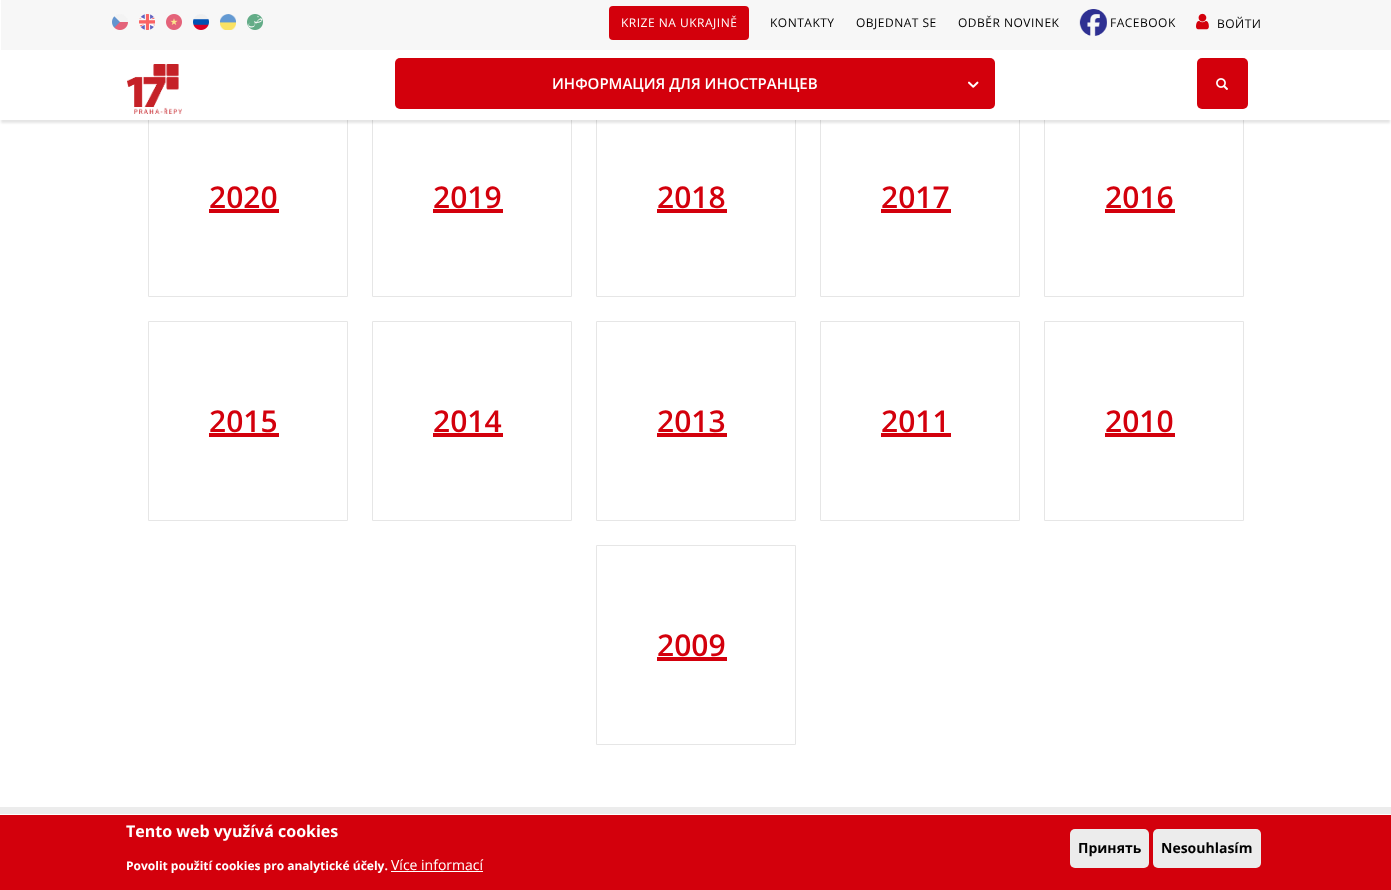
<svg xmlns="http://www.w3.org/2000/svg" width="1391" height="890">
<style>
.a{font:12px Open Sans;letter-spacing:0.5px;fill:#fff}
.b{font:12px Open Sans;letter-spacing:0.5px;fill:#000}
.c{font:600 15px Open Sans;fill:#fff}
.d{font:600 30px Open Sans;fill:#d3000c}
.e{font:bold 16px Open Sans;fill:#fff}
.f{font:bold 12px Open Sans;fill:#fff}
.g{font:14px Open Sans;fill:#fff}
.h{font:bold 14px Open Sans;fill:#000}
</style>
<rect width="100%" height="100%" fill="#fff"/>
<path fill="none" stroke="#e6e6e6" d="M148.5 97.5h199v199H148.5z"/>
<path fill="none" stroke="#e6e6e6" d="M372.5 97.5h199v199H372.5z"/>
<path fill="none" stroke="#e6e6e6" d="M596.5 97.5h199v199H596.5z"/>
<path fill="none" stroke="#e6e6e6" d="M820.5 97.5h199v199H820.5z"/>
<path fill="none" stroke="#e6e6e6" d="M1044.5 97.5h199v199H1044.5z"/>
<path fill="#0000001a" filter="blur(1px)" d="M1 5h1389v118H1z"/>
<path fill="#fff" d="M0 4h1391v116H0z"/>
<path fill="#f7f7f7" d="M1 0h1390v50H1z"/>
<image href="1.png" x="112" y="14" width="16" height="16"/>
<image href="2.png" x="139" y="14" width="16" height="16"/>
<image href="3.png" x="166" y="14" width="16" height="16"/>
<image href="4.png" x="193" y="14" width="16" height="16"/>
<image href="5.png" x="220" y="14" width="16" height="16"/>
<image href="6.png" x="247" y="14" width="16" height="16"/>
<rect fill="#d3000c" x="609" y="6" width="140" height="34" rx="4"/>
<image href="7.png" x="1079" y="9" width="28" height="27"/>
<image href="8.png" x="1196" y="13" width="13" height="17"/>
<image href="9.png" x="127" y="64" width="55" height="50"/>
<rect fill="#d3000c" x="1197" y="58" width="51" height="51" rx="5"/>
<image href="10.png" x="1216" y="78" width="12" height="12"/>
<rect fill="#d3000c" x="395" y="58" width="600" height="51" rx="5"/>
<image href="11.png" x="968" y="81" width="11" height="7"/>
<path fill="#d3000c" d="M209 209h70v4H209z"/>
<path fill="#d3000c" d="M433 209h70v4H433z"/>
<path fill="#d3000c" d="M657 209h70v4H657z"/>
<path fill="#d3000c" d="M881 209h70v4H881z"/>
<path fill="#d3000c" d="M1105 209h70v4H1105z"/>
<path fill="none" stroke="#e6e6e6" d="M148.5 321.5h199v199H148.5z"/>
<path fill="#d3000c" d="M209 433h70v4H209z"/>
<path fill="none" stroke="#e6e6e6" d="M372.5 321.5h199v199H372.5z"/>
<path fill="#d3000c" d="M433 433h70v4H433z"/>
<path fill="none" stroke="#e6e6e6" d="M596.5 321.5h199v199H596.5z"/>
<path fill="#d3000c" d="M657 433h70v4H657z"/>
<path fill="none" stroke="#e6e6e6" d="M820.5 321.5h199v199H820.5z"/>
<path fill="#d3000c" d="M881 433h70v4H881z"/>
<path fill="none" stroke="#e6e6e6" d="M1044.5 321.5h199v199H1044.5z"/>
<path fill="#d3000c" d="M1105 433h70v4H1105z"/>
<path fill="none" stroke="#e6e6e6" d="M596.5 545.5h199v199H596.5z"/>
<path fill="#d3000c" d="M657 657h70v4H657z"/>
<path fill="#ececec" d="M0 807h1391v7H0z"/>
<path fill="#d3000c" d="M0 815h1391v75H0z"/>
<path fill="#fff" d="M391 871h92v1H391z"/>
<rect fill="#ececec" x="1070" y="829" width="79" height="39" rx="5"/>
<rect fill="#ececec" x="1153" y="829" width="108" height="39" rx="5"/>
<text class="a" x="621" y="27">KRIZE NA UKRAJINĚ</text>
<text class="b" x="770" y="27">KONTAKTY</text>
<text class="b" x="856" y="27">OBJEDNAT SE</text>
<text class="b" x="958" y="27">ODBĚR NOVINEK</text>
<text class="b" x="1110" y="27">FACEBOOK</text>
<text class="b" x="1217" y="28">ВОЙТИ</text>
<text class="c" x="552" y="89">ИНФОРМАЦИЯ ДЛЯ ИНОСТРАНЦЕВ</text>
<text class="d" x="209" y="208">2020</text>
<text class="d" x="433" y="208">2019</text>
<text class="d" x="657" y="208">2018</text>
<text class="d" x="881" y="208">2017</text>
<text class="d" x="1105" y="208">2016</text>
<text class="d" x="209" y="432">2015</text>
<text class="d" x="433" y="432">2014</text>
<text class="d" x="657" y="432">2013</text>
<text class="d" x="881" y="432">2011</text>
<text class="d" x="1105" y="432">2010</text>
<text class="d" x="657" y="656">2009</text>
<text class="e" x="126" y="837">Tento web využívá cookies</text>
<text class="f" x="126" y="870">Povolit použití cookies pro analytické účely.</text>
<text class="g" x="391" y="870">Více informací</text>
<text class="h" x="1078" y="853">Принять</text>
<text class="h" x="1161" y="853">Nesouhlasím</text>
</svg>
